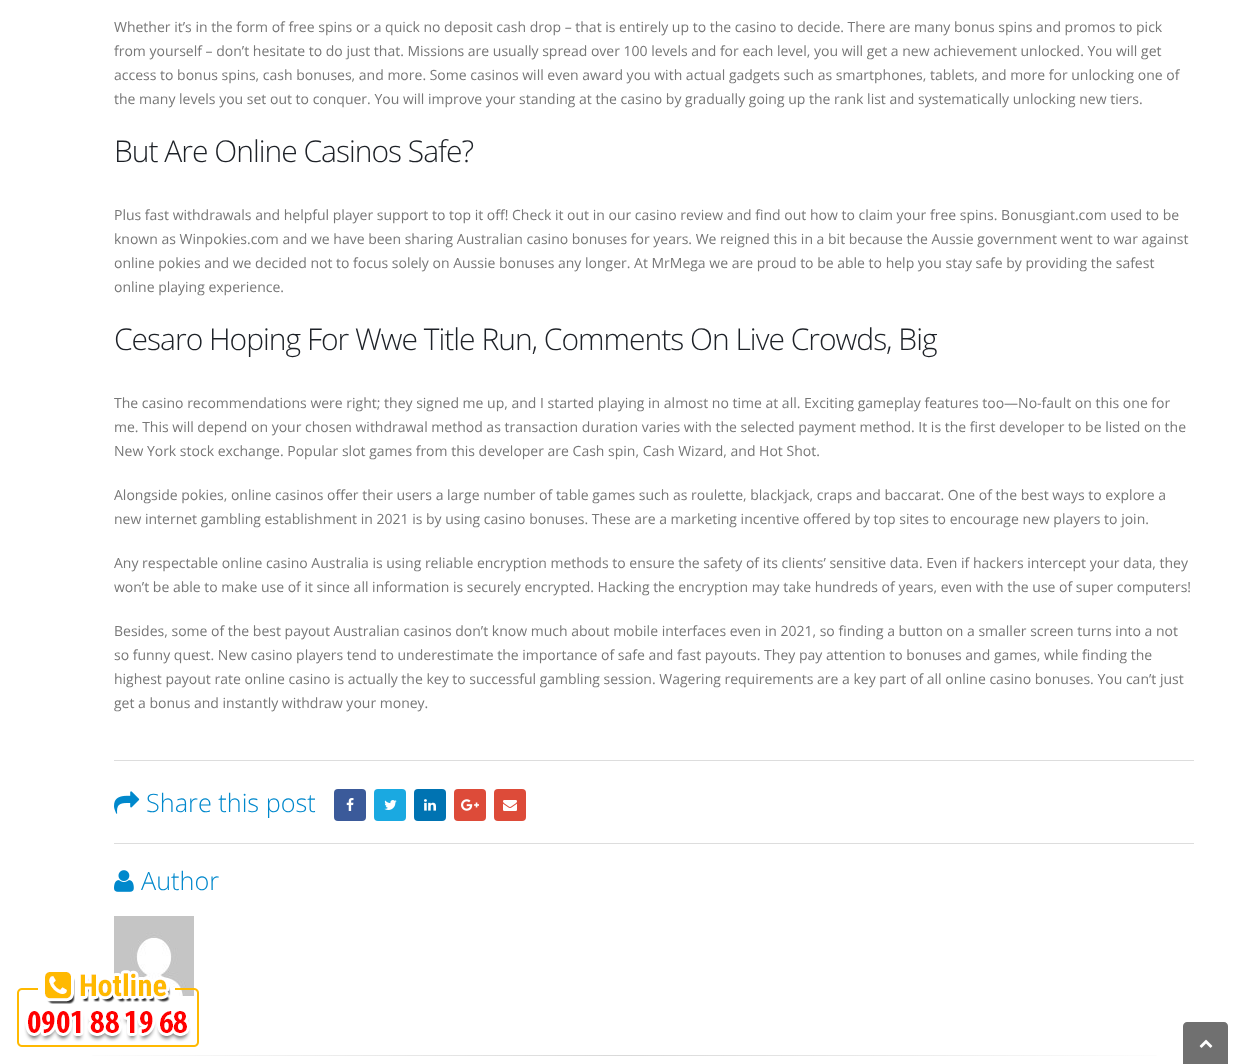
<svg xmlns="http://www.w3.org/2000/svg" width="1248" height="1064">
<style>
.a{font:14px Open Sans;fill:#777}
.b{font:300 30px Open Sans;letter-spacing:-1px;fill:#1d2127}
.c{font:300 25.25px Open Sans;fill:#08c}
</style>
<defs>
<linearGradient id="g1" gradientUnits="userSpaceOnUse" x1="54" y1="1056" x2="1194" y2="1056"><stop offset="0" stop-color="#fff"/><stop offset="0.5" stop-color="#d9d9d9"/><stop offset="1" stop-color="#fff"/></linearGradient>
</defs>
<rect width="100%" height="100%" fill="#fff"/>
<path fill="#ddd" d="M114 760h1080v1H114z"/>
<image href="1.png" x="114" y="791" width="26" height="23"/>
<rect fill="#3b5a9a" x="334" y="789" width="32" height="32" rx="4"/>
<image href="2.png" x="346" y="798" width="8" height="13"/>
<rect fill="#1aa9e1" x="374" y="789" width="32" height="32" rx="4"/>
<image href="3.png" x="384" y="800" width="13" height="10"/>
<rect fill="#0073b2" x="414" y="789" width="32" height="32" rx="4"/>
<image href="4.png" x="424" y="799" width="12" height="12"/>
<rect fill="#dd4b39" x="454" y="789" width="32" height="32" rx="4"/>
<image href="5.png" x="461" y="799" width="18" height="12"/>
<rect fill="#dd4b39" x="494" y="789" width="32" height="32" rx="4"/>
<image href="6.png" x="503" y="800" width="14" height="11"/>
<path fill="#ddd" d="M114 843h1080v1H114z"/>
<image href="7.png" x="114" y="870" width="20" height="22"/>
<image href="8.png" x="114" y="916" width="80" height="80"/>
<path fill="url(#g1)" d="M92 1055h1065v1H92z"/>
<image href="9.png" x="17" y="970" width="182" height="77"/>
<path fill="#707070" d="M1187 1022h37c2 0 4 2 4 4v38h-45v-38c0-2 2-4 4-4z"/>
<image href="10.png" x="1199" y="1039" width="14" height="9"/>
<text class="a" x="114" y="32">Whether it’s in the form of free spins or a quick no deposit cash drop – that is entirely up to the casino to decide. There are many bonus spins and promos to pick</text>
<text class="a" x="114" y="56">from yourself – don’t hesitate to do just that. Missions are usually spread over 100 levels and for each level, you will get a new achievement unlocked. You will get</text>
<text class="a" x="114" y="80">access to bonus spins, cash bonuses, and more. Some casinos will even award you with actual gadgets such as smartphones, tablets, and more for unlocking one of</text>
<text class="a" x="114" y="104">the many levels you set out to conquer. You will improve your standing at the casino by gradually going up the rank list and systematically unlocking new tiers.</text>
<text class="b" x="114" y="162">But Are Online Casinos Safe?</text>
<text class="a" x="114" y="220">Plus fast withdrawals and helpful player support to top it off! Check it out in our casino review and find out how to claim your free spins. Bonusgiant.com used to be</text>
<text class="a" x="114" y="244">known as Winpokies.com and we have been sharing Australian casino bonuses for years. We reigned this in a bit because the Aussie government went to war against</text>
<text class="a" x="114" y="268">online pokies and we decided not to focus solely on Aussie bonuses any longer. At MrMega we are proud to be able to help you stay safe by providing the safest</text>
<text class="a" x="114" y="292">online playing experience.</text>
<text class="b" x="114" y="350">Cesaro Hoping For Wwe Title Run, Comments On Live Crowds, Big</text>
<text class="a" x="114" y="408">The casino recommendations were right; they signed me up, and I started playing in almost no time at all. Exciting gameplay features too—No-fault on this one for</text>
<text class="a" x="114" y="432">me. This will depend on your chosen withdrawal method as transaction duration varies with the selected payment method. It is the first developer to be listed on the</text>
<text class="a" x="114" y="456">New York stock exchange. Popular slot games from this developer are Cash spin, Cash Wizard, and Hot Shot.</text>
<text class="a" x="114" y="500">Alongside pokies, online casinos offer their users a large number of table games such as roulette, blackjack, craps and baccarat. One of the best ways to explore a</text>
<text class="a" x="114" y="524">new internet gambling establishment in 2021 is by using casino bonuses. These are a marketing incentive offered by top sites to encourage new players to join.</text>
<text class="a" x="114" y="568">Any respectable online casino Australia is using reliable encryption methods to ensure the safety of its clients’ sensitive data. Even if hackers intercept your data, they</text>
<text class="a" x="114" y="592">won’t be able to make use of it since all information is securely encrypted. Hacking the encryption may take hundreds of years, even with the use of super computers!</text>
<text class="a" x="114" y="636">Besides, some of the best payout Australian casinos don’t know much about mobile interfaces even in 2021, so finding a button on a smaller screen turns into a not</text>
<text class="a" x="114" y="660">so funny quest. New casino players tend to underestimate the importance of safe and fast payouts. They pay attention to bonuses and games, while finding the</text>
<text class="a" x="114" y="684">highest payout rate online casino is actually the key to successful gambling session. Wagering requirements are a key part of all online casino bonuses. You can’t just</text>
<text class="a" x="114" y="708">get a bonus and instantly withdraw your money.</text>
<text class="c" x="146" y="812">Share this post</text>
<text class="c" x="141" y="890">Author</text>
</svg>
